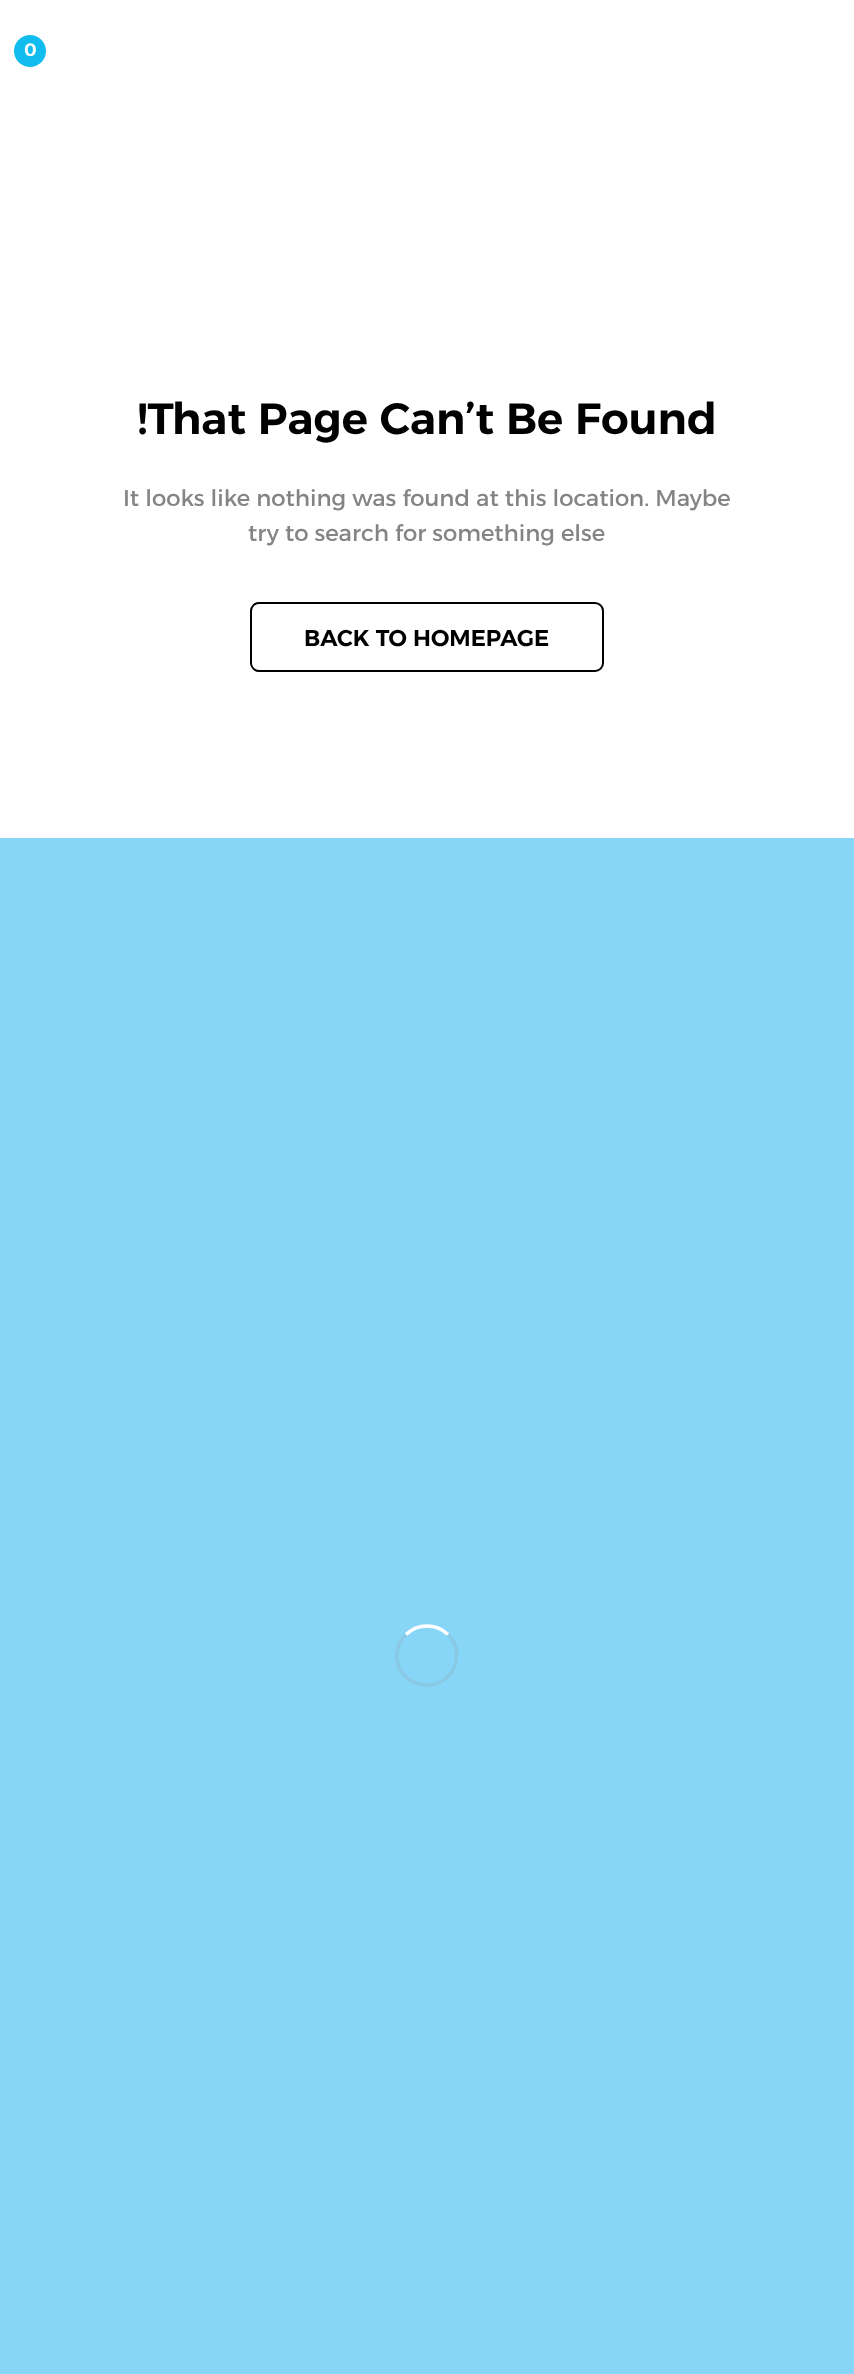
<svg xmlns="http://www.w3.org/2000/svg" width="854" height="2374">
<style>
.a{font:600 18px Alexandria;fill:#fff}
.b{font:600 43.75px Alexandria;fill:#000}
.c{font:22.75px Alexandria;fill:#848484}
.d{font:600 22.75px Alexandria;fill:#000}
</style>
<rect width="100%" height="100%" fill="#fff"/>
<circle fill="#11bdee" cx="30" cy="51" r="16"/>
<rect fill="none" stroke="#000" stroke-width="2" x="251" y="603" width="352" height="68" rx="8"/>
<path fill="#87d6f8" d="M0 838h854v1536H0z"/>
<path fill="none" stroke="#fff" stroke-width="3.5" d="M406 1634.5c11.5-11.5 30.5-11.5 42 0"/>
<path fill="none" stroke="#96969633" stroke-width="3.5" d="M448 1634.5c7 7 10 17 8 27c-7 34.5-59 29.5-59-6c0-8 3.5-15.5 9-21"/>
<text class="a" x="24" y="56">0</text>
<text class="b" x="137" y="434">!That Page Can’t Be Found</text>
<text class="c" x="123" y="506">It looks like nothing was found at this location. Maybe</text>
<text class="c" x="248" y="541">try to search for something else</text>
<text class="d" x="304" y="646">BACK TO HOMEPAGE</text>
</svg>
